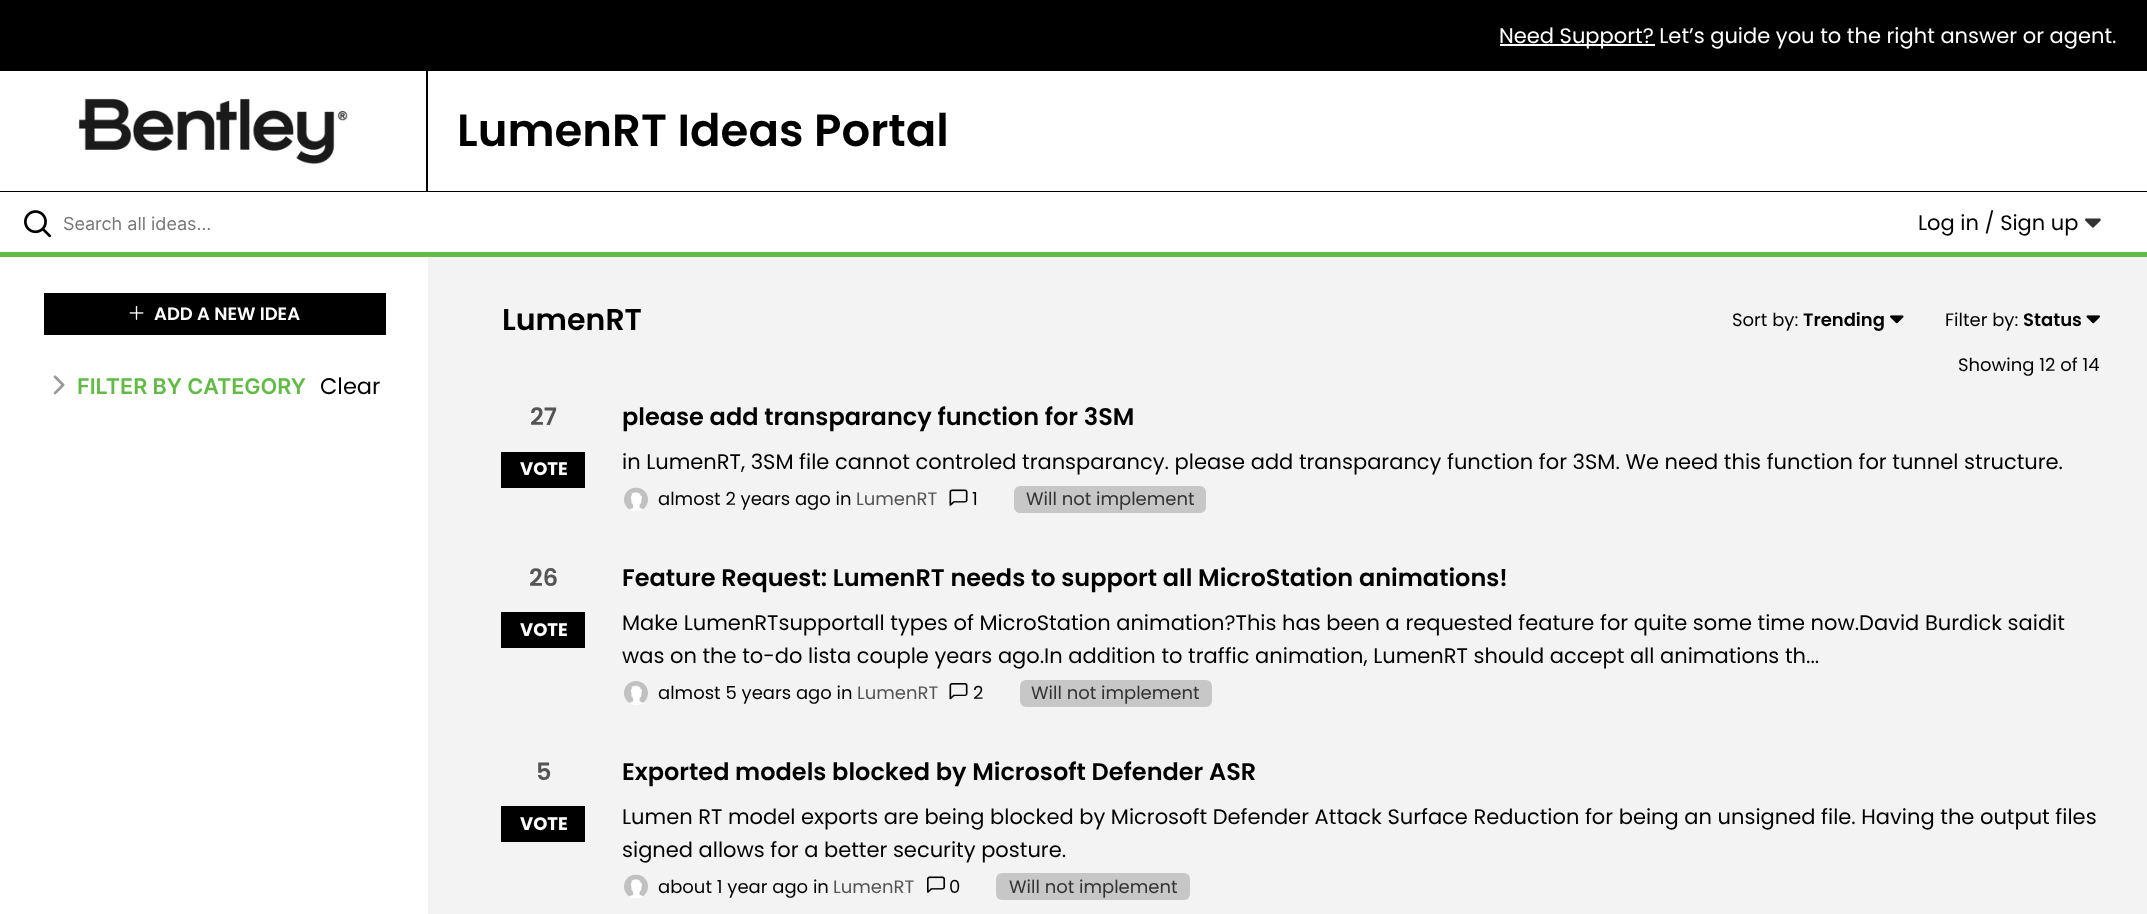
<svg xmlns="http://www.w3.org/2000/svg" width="2147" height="914">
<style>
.a{font:21px Poppins;fill:#fff}
.b{font:600 45px Poppins;fill:#000}
.c{font:18px Inter;fill:#767676}
.d{font:21px Poppins;fill:#000}
.e{font:600 18px Poppins;fill:#fff}
.f{font:600 21.6px Inter;fill:#62bb46}
.g{font:22.5px Poppins;fill:#000}
.h{font:600 30px Poppins;fill:#000}
.i{font:18px Poppins;fill:#000}
.j{font:600 18px Poppins;fill:#000}
.k{font:600 24px Poppins;fill:#555}
.l{font:bold 18px Poppins;fill:#fff}
.m{font:600 24px Poppins;fill:#000}
.n{font:18px Poppins;fill:#555}
.o{font:18px Poppins;fill:#333}
</style>
<rect width="100%" height="100%" fill="#f3f3f3"/>
<path fill="#000" d="M0 0h2147v71H0z"/>
<path fill="#fff" d="M1500 44h155v2H1500z"/>
<path fill="#fff" d="M0 71h2147v120H0z"/>
<path fill="#000" d="M0 191h2147v1H0z"/>
<image href="1.png" x="78" y="98" width="270" height="67"/>
<path fill="#000" d="M426 71h2v120H426z"/>
<path fill="#fff" d="M0 192h2147v60H0z"/>
<path fill="#62bb46" d="M0 252h2147v5H0z"/>
<image href="2.png" x="24" y="210" width="27" height="28"/>
<image href="3.png" x="2085" y="218" width="16" height="10"/>
<path fill="#fff" d="M0 257h428v657H0z"/>
<path fill="#000" d="M44 293h342v42H44z"/>
<image href="4.png" x="129" y="306" width="15" height="14"/>
<image href="5.png" x="53" y="375" width="12" height="20"/>
<image href="6.png" x="1890" y="315" width="14" height="9"/>
<image href="7.png" x="2086" y="315" width="14" height="9"/>
<path fill="#000" d="M501 452h84v36H501z"/>
<image href="8.png" x="624" y="487" width="24" height="24"/>
<image href="9.png" x="949" y="489" width="19" height="17"/>
<rect fill="#c7c7c7" x="1014" y="486" width="192" height="27" rx="6"/>
<path fill="#000" d="M501 612h84v36H501z"/>
<image href="10.png" x="624" y="681" width="24" height="24"/>
<image href="11.png" x="949" y="683" width="19" height="17"/>
<rect fill="#c7c7c7" x="1020" y="680" width="192" height="27" rx="6"/>
<path fill="#000" d="M501 806h84v36H501z"/>
<image href="12.png" x="624" y="874" width="24" height="24"/>
<image href="13.png" x="927" y="876" width="18" height="17"/>
<rect fill="#c7c7c7" x="996" y="873" width="194" height="27" rx="6"/>
<text class="a" x="1499" y="43">Need Support? Let’s guide you to the right answer or agent.</text>
<text class="b" x="457" y="146">LumenRT Ideas Portal</text>
<text class="c" x="63" y="230">Search all ideas…</text>
<text class="d" x="1918" y="230">Log in / Sign up</text>
<text class="e" x="154" y="320">ADD A NEW IDEA</text>
<text class="f" x="77" y="394">FILTER BY CATEGORY</text>
<text class="g" x="320" y="394">Clear</text>
<text class="h" x="502" y="330">LumenRT</text>
<text class="i" x="1732" y="326">Sort by:</text>
<text class="j" x="1803" y="326">Trending</text>
<text class="i" x="1945" y="326">Filter by:</text>
<text class="j" x="2023" y="326">Status</text>
<text class="i" x="1958" y="371">Showing 12 of 14</text>
<text class="k" x="530" y="425">27</text>
<text class="l" x="520" y="475">VOTE</text>
<text class="m" x="622" y="425">please add transparancy function for 3SM</text>
<text class="d" x="622" y="469">in LumenRT, 3SM file cannot controled transparancy. please add transparancy function for 3SM. We need this function for tunnel structure.</text>
<text class="i" x="658" y="505">almost 2 years ago in</text>
<text class="n" x="856" y="505">LumenRT</text>
<text class="i" x="972" y="505">1</text>
<text class="o" x="1026" y="505">Will not implement</text>
<text class="k" x="529" y="586">26</text>
<text class="l" x="520" y="636">VOTE</text>
<text class="m" x="622" y="586">Feature Request: LumenRT needs to support all MicroStation animations!</text>
<text class="d" x="622" y="630">Make LumenRTsupportall types of MicroStation animation?This has been a requested feature for quite some time now.David Burdick saidit</text>
<text class="d" x="622" y="663">was on the to-do lista couple years ago.In addition to traffic animation, LumenRT should accept all animations th...</text>
<text class="i" x="658" y="699">almost 5 years ago in</text>
<text class="n" x="857" y="699">LumenRT</text>
<text class="i" x="973" y="699">2</text>
<text class="o" x="1031" y="699">Will not implement</text>
<text class="k" x="536" y="780">5</text>
<text class="l" x="520" y="830">VOTE</text>
<text class="m" x="622" y="780">Exported models blocked by Microsoft Defender ASR</text>
<text class="d" x="622" y="824">Lumen RT model exports are being blocked by Microsoft Defender Attack Surface Reduction for being an unsigned file. Having the output files</text>
<text class="d" x="622" y="857">signed allows for a better security posture.</text>
<text class="i" x="658" y="893">about 1 year ago in</text>
<text class="n" x="833" y="893">LumenRT</text>
<text class="i" x="949" y="893">0</text>
<text class="o" x="1009" y="893">Will not implement</text>
</svg>
